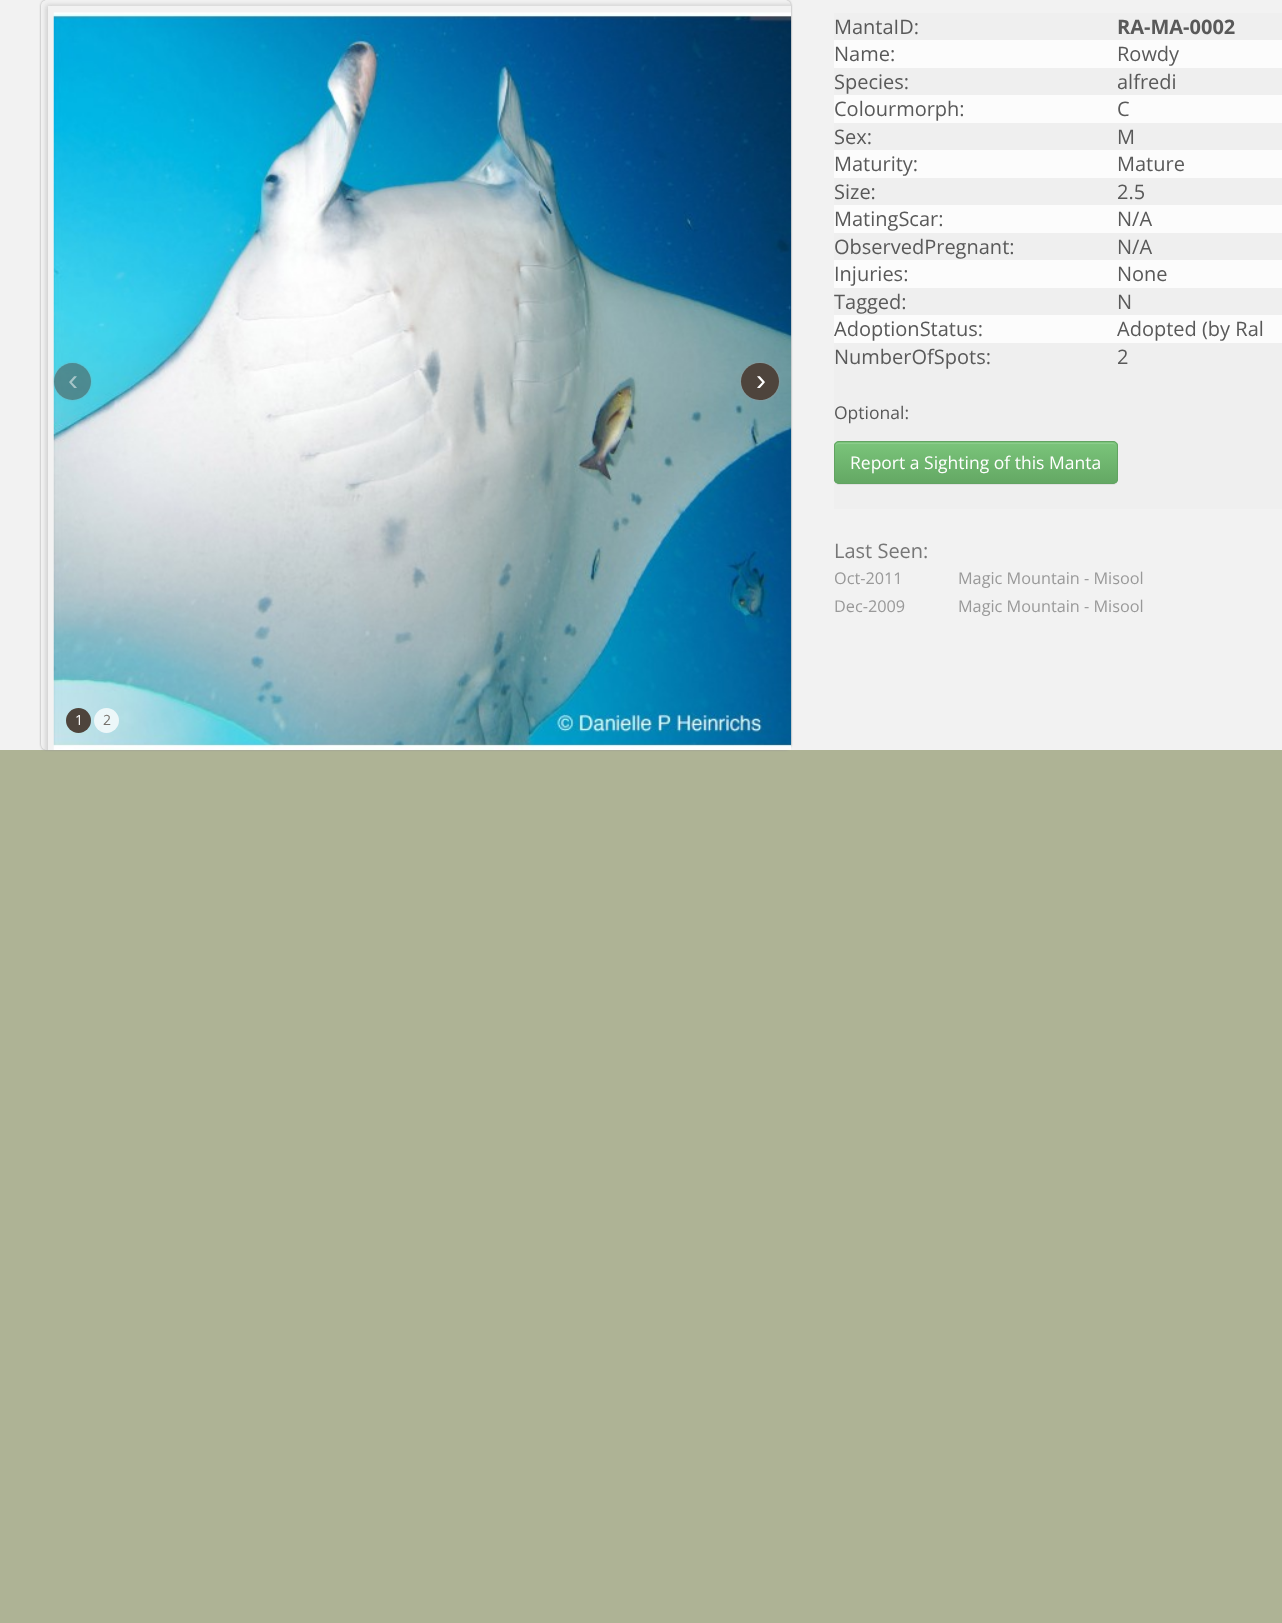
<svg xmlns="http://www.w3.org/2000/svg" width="1282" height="1623">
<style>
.a{font:30px Liberation Sans;fill:#a6c5c8}
.b{font:30px Liberation Sans;fill:#fff}
.c{font:14px Open Sans;fill:#fff}
.d{font:14px Open Sans;fill:#76716b}
.e{font:20px Open Sans;fill:#595959}
.f{font:bold 20px Open Sans;fill:#595959}
.g{font:17.5px Open Sans;fill:#595959}
.h{font:17.5px Open Sans;fill:#fff}
.i{font:20px Open Sans;fill:#777}
.j{font:16.25px Open Sans;fill:#999}
</style>
<defs>
<clipPath id="clip1"><path d="M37 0h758v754h-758zm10 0h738c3.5 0 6 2.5 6 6v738c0 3.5-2.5 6-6 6h-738c-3.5 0-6-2.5-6-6v-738c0-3.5 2.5-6 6-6z" clip-rule="evenodd"/></clipPath>
<clipPath id="clip2"><path d="M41 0h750v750H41z"/></clipPath>
<clipPath id="clip3"><path d="M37 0h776v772h-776zm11 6h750v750h-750z" clip-rule="evenodd"/></clipPath>
<clipPath id="clip4"><path d="M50 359h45v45h-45zm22.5 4c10 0 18.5 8.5 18.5 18.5c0 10-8.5 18.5-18.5 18.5c-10 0-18.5-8.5-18.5-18.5c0-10 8.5-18.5 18.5-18.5z" clip-rule="evenodd"/></clipPath>
<clipPath id="clip5"><rect x="834" y="441" width="284" height="43" rx="5"/></clipPath>
<linearGradient id="g1" gradientUnits="userSpaceOnUse" x1="976" y1="443" x2="976" y2="483"><stop offset="0" stop-color="#7ac47a"/><stop offset="1" stop-color="#64a864"/></linearGradient>
</defs>
<rect width="100%" height="100%" fill="#aeb395"/>
<path fill="#f2f2f2" d="M0 0h1282v750H0z"/>
<g clip-path="url(#clip1)">
<rect fill="#999" filter="blur(1px)" x="41" width="750" height="750" rx="6"/>
</g>
<g clip-path="url(#clip2)">
<g clip-path="url(#clip3)">
<path fill="#ccc" filter="blur(2.5px)" d="M46 5h758v758H46z"/>
</g>
</g>
<image href="1.png" x="53" y="12" width="739" height="738"/>
<g clip-path="url(#clip4)">
<rect fill="#99999980" filter="blur(1px)" x="54" y="363" width="37" height="37" rx="18.5"/>
</g>
<circle fill="#4e443c80" cx="72.5" cy="381.5" r="18.5"/>
<rect fill="#999" filter="blur(1px)" x="741" y="363" width="38" height="37" rx="18.5"/>
<rect fill="#4e443c" x="741" y="363" width="38" height="37" rx="18.5"/>
<circle fill="#4e443c" cx="78.5" cy="720.5" r="12.5"/>
<circle fill="#ffffffbf" cx="106.5" cy="720.5" r="12.5"/>
<path fill="#efefef" d="M834 13h448v27H834z"/>
<path fill="#fcfcfc" d="M834 40h448v28H834z"/>
<path fill="#efefef" d="M834 68h448v27H834z"/>
<path fill="#fcfcfc" d="M834 95h448v28H834z"/>
<path fill="#efefef" d="M834 123h448v27H834z"/>
<path fill="#fcfcfc" d="M834 150h448v28H834z"/>
<path fill="#efefef" d="M834 178h448v27H834z"/>
<path fill="#fcfcfc" d="M834 205h448v28H834z"/>
<path fill="#efefef" d="M834 233h448v27H834z"/>
<path fill="#fcfcfc" d="M834 260h448v28H834z"/>
<path fill="#efefef" d="M834 288h448v27H834z"/>
<path fill="#fcfcfc" d="M834 315h448v28H834z"/>
<path fill="#efefef" d="M834 343h448v166H834z"/>
<rect fill="#30303012" filter="blur(0.5px)" x="834" y="443" width="284" height="42" rx="5"/>
<rect fill="#7ac47a" x="834" y="441" width="284" height="43" rx="5"/>
<g clip-path="url(#clip5)">
<path fill="url(#g1)" d="M834 443h284v40H834z"/>
</g>
<path fill="#8dcc8d" d="M839 444h273c3 0 4 1 4 4c0-3-1-5-4-5h-273c-3 0-4 2-4 5c0-3 2-4 4-4z"/>
<rect fill="none" stroke="#62a362" x="834.5" y="441.5" width="283" height="42" rx="4.5"/>
<text class="a" x="68" y="390">‹</text>
<text class="b" x="756" y="390">›</text>
<text class="c" x="75" y="725">1</text>
<text class="d" x="103" y="725">2</text>
<text class="e" x="834" y="34">MantaID:</text>
<text class="f" x="1117" y="34">RA-MA-0002</text>
<text class="e" x="834" y="61">Name:</text>
<text class="e" x="1117" y="61">Rowdy</text>
<text class="e" x="834" y="89">Species:</text>
<text class="e" x="1117" y="89">alfredi</text>
<text class="e" x="834" y="116">Colourmorph:</text>
<text class="e" x="1117" y="116">C</text>
<text class="e" x="834" y="144">Sex:</text>
<text class="e" x="1117" y="144">M</text>
<text class="e" x="834" y="171">Maturity:</text>
<text class="e" x="1117" y="171">Mature</text>
<text class="e" x="834" y="199">Size:</text>
<text class="e" x="1117" y="199">2.5</text>
<text class="e" x="834" y="226">MatingScar:</text>
<text class="e" x="1117" y="226">N/A</text>
<text class="e" x="834" y="254">ObservedPregnant:</text>
<text class="e" x="1117" y="254">N/A</text>
<text class="e" x="834" y="281">Injuries:</text>
<text class="e" x="1117" y="281">None</text>
<text class="e" x="834" y="309">Tagged:</text>
<text class="e" x="1117" y="309">N</text>
<text class="e" x="834" y="336">AdoptionStatus:</text>
<text class="e" x="1117" y="336">Adopted (by Ral</text>
<text class="e" x="834" y="364">NumberOfSpots:</text>
<text class="e" x="1117" y="364">2</text>
<text class="g" x="834" y="419">Optional:</text>
<text class="h" x="850" y="469">Report a Sighting of this Manta</text>
<text class="i" x="834" y="558">Last Seen:</text>
<text class="j" x="834" y="584">Oct-2011</text>
<text class="j" x="958" y="584">Magic Mountain - Misool</text>
<text class="j" x="834" y="612">Dec-2009</text>
<text class="j" x="958" y="612">Magic Mountain - Misool</text>
</svg>
